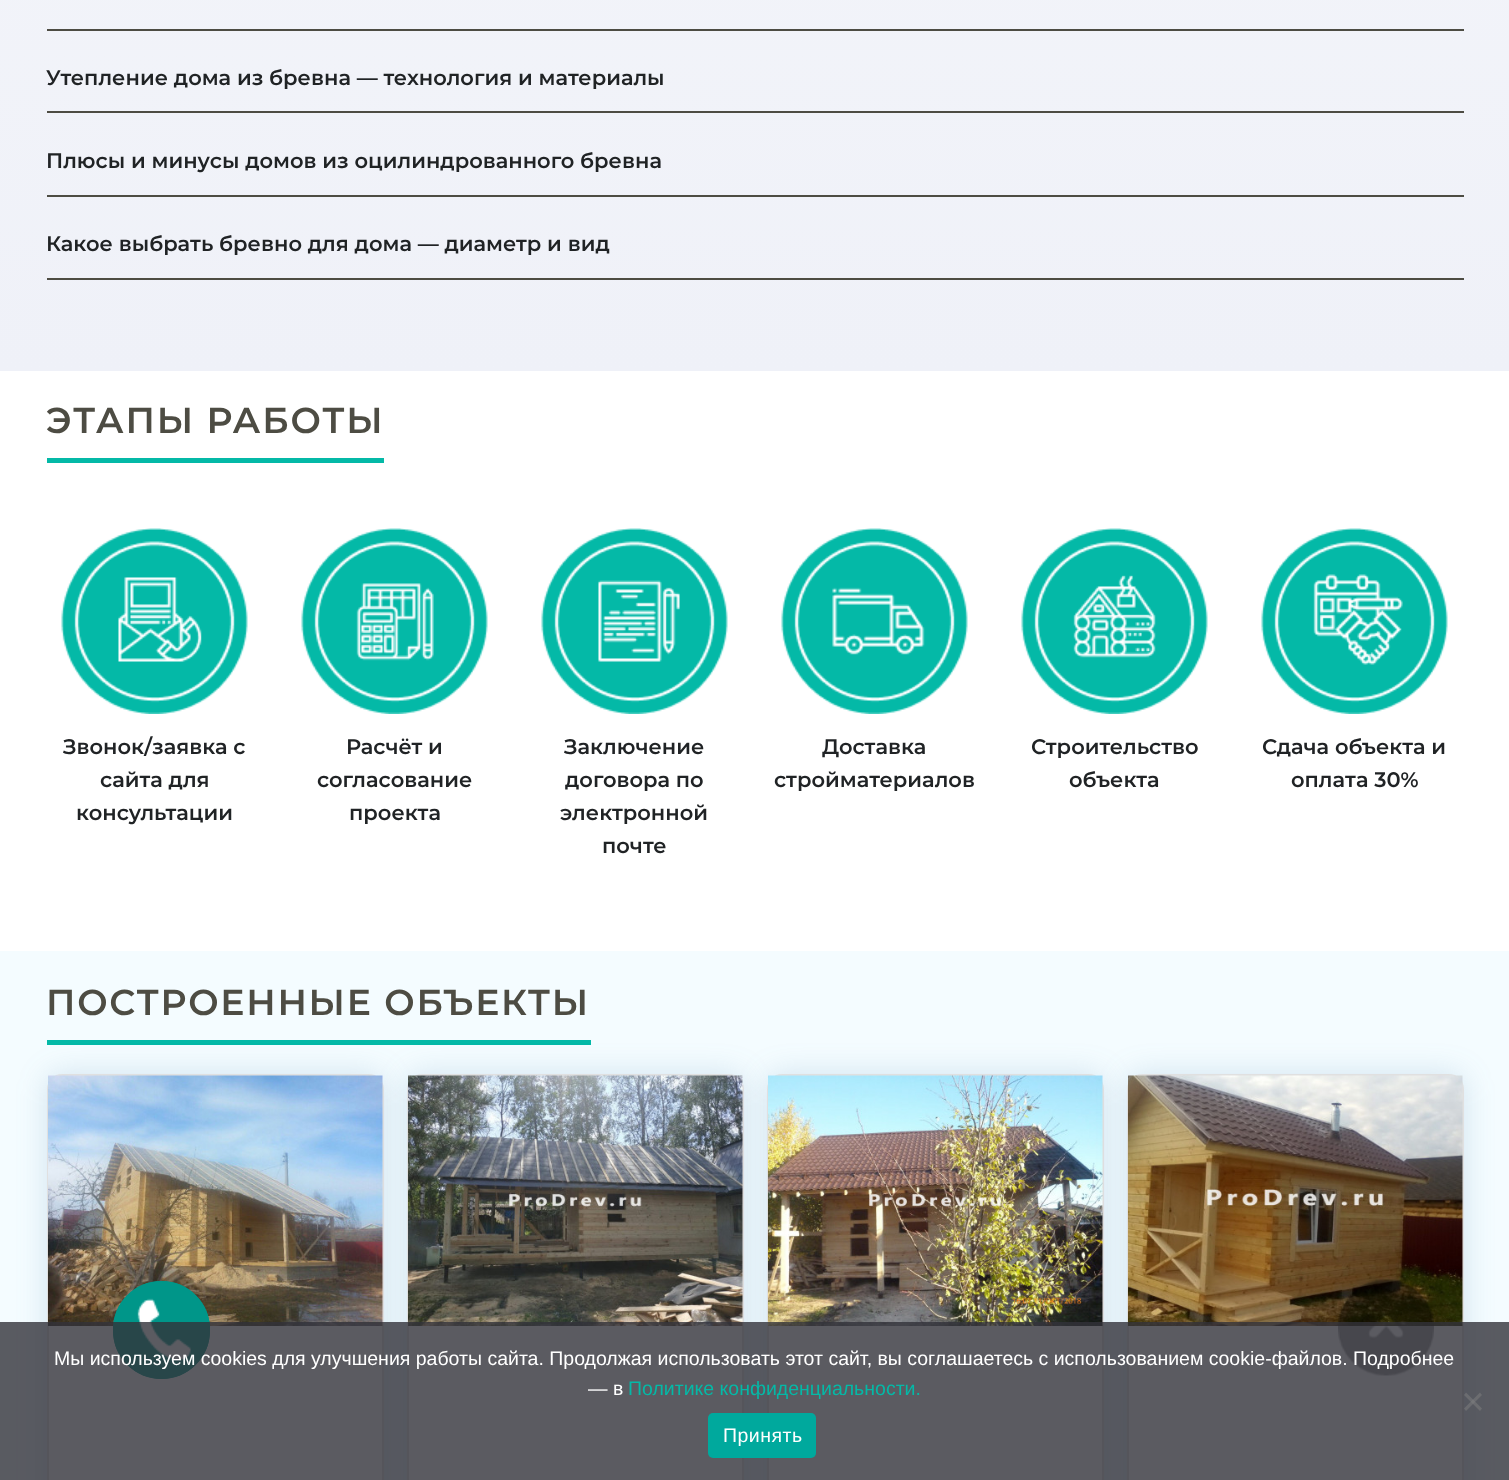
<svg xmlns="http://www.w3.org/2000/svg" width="1509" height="1480">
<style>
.a{font:600 21px Montserrat;fill:#202325}
.b{font:600 36px Montserrat;letter-spacing:1.75px;fill:#4d4c43}
.c{font:19.5px Liberation Sans;fill:#fff}
.d{font:19.5px Liberation Sans;fill:#04b9a7}
.e{font:19.5px Liberation Sans;letter-spacing:0.5px;fill:#fff}
</style>
<defs>
<linearGradient id="g1" gradientUnits="userSpaceOnUse" x1="754" y1="-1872" x2="755" y2="371"><stop offset="0" stop-color="#fff"/><stop offset="1" stop-color="#eff1f8"/></linearGradient>
</defs>
<rect width="100%" height="100%" fill="#fff"/>
<path fill="url(#g1)" d="M0 0h1509v371H0z"/>
<path fill="#4d4c43" d="M47 29h1417v2H47z"/>
<path fill="#4d4c43" d="M47 111h1417v2H47z"/>
<path fill="#4d4c43" d="M47 195h1417v2H47z"/>
<path fill="#4d4c43" d="M47 278h1417v2H47z"/>
<path fill="#04b9a7" d="M47 458h337v5H47z"/>
<image href="1.png" x="61" y="528" width="187" height="186"/>
<image href="2.png" x="301" y="528" width="187" height="186"/>
<image href="3.png" x="541" y="528" width="187" height="186"/>
<image href="4.png" x="781" y="528" width="187" height="186"/>
<image href="5.png" x="1021" y="528" width="187" height="186"/>
<image href="6.png" x="1261" y="528" width="187" height="186"/>
<path fill="#f4fcff" d="M0 951h1509v529H0z"/>
<path fill="#04b9a7" d="M47 1040h544v5H47z"/>
<rect fill="#457faa33" filter="blur(15px)" x="47" y="1074" width="337" height="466" rx="15"/>
<rect fill="#fff" x="47" y="1074" width="337" height="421" rx="15"/>
<rect fill="none" stroke="#0000001f" stroke-width="2" x="48" y="1075" width="335" height="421" rx="14"/>
<image href="7.png" x="48" y="1075" width="335" height="251"/>
<rect fill="#457faa33" filter="blur(15px)" x="407" y="1074" width="337" height="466" rx="15"/>
<rect fill="#fff" x="407" y="1074" width="337" height="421" rx="15"/>
<rect fill="none" stroke="#0000001f" stroke-width="2" x="408" y="1075" width="335" height="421" rx="14"/>
<image href="8.png" x="408" y="1075" width="335" height="251"/>
<rect fill="#457faa33" filter="blur(15px)" x="767" y="1074" width="337" height="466" rx="15"/>
<rect fill="#fff" x="767" y="1074" width="337" height="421" rx="15"/>
<rect fill="none" stroke="#0000001f" stroke-width="2" x="768" y="1075" width="335" height="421" rx="14"/>
<image href="9.png" x="768" y="1075" width="335" height="251"/>
<rect fill="#457faa33" filter="blur(15px)" x="1127" y="1074" width="337" height="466" rx="15"/>
<rect fill="#fff" x="1127" y="1074" width="337" height="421" rx="15"/>
<rect fill="none" stroke="#0000001f" stroke-width="2" x="1128" y="1075" width="335" height="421" rx="14"/>
<image href="10.png" x="1128" y="1075" width="335" height="251"/>
<rect fill="none" stroke="#009689" stroke-width="2" x="114" y="1282" width="95" height="96" rx="47.5"/>
<rect fill="#009689" x="113" y="1281" width="97" height="98" rx="48.5"/>
<image href="11.png" x="137" y="1298" width="54" height="63"/>
<image href="12.png" x="1338" y="1279" width="96" height="97"/>
<path fill="#32323acc" d="M0 1322h1509v158H0z"/>
<path fill="#80808080" d="M1480 1392.5l2 2.5l-16 16l-2-2.5z"/>
<path fill="#80808080" d="M1464 1395l2-2.5l16 16l-2 2.5z"/>
<rect fill="#00a99d" x="708" y="1413" width="108" height="45" rx="5"/>
<text class="a" x="46" y="85">Утепление дома из бревна — технология и материалы</text>
<text class="a" x="46" y="168">Плюсы и минусы домов из оцилиндрованного бревна</text>
<text class="a" x="46" y="251">Какое выбрать бревно для дома — диаметр и вид</text>
<text class="b" x="46" y="433">ЭТАПЫ РАБОТЫ</text>
<text class="a" x="63" y="754">Звонок/заявка с</text>
<text class="a" x="100" y="787">сайта для</text>
<text class="a" x="76" y="820">консультации</text>
<text class="a" x="346" y="754">Расчёт и</text>
<text class="a" x="317" y="787">согласование</text>
<text class="a" x="349" y="820">проекта</text>
<text class="a" x="564" y="754">Заключение</text>
<text class="a" x="565" y="787">договора по</text>
<text class="a" x="560" y="820">электронной</text>
<text class="a" x="602" y="853">почте</text>
<text class="a" x="822" y="754">Доставка</text>
<text class="a" x="774" y="787">стройматериалов</text>
<text class="a" x="1031" y="754">Строительство</text>
<text class="a" x="1069" y="787">объекта</text>
<text class="a" x="1262" y="754">Сдача объекта и</text>
<text class="a" x="1291" y="787">оплата 30%</text>
<text class="b" x="46" y="1015">ПОСТРОЕННЫЕ ОБЪЕКТЫ</text>
<text class="c" x="54" y="1365">Мы используем cookies для улучшения работы сайта. Продолжая использовать этот сайт, вы соглашаетесь с использованием cookie-файлов. Подробнее</text>
<text class="c" x="588" y="1395">— в</text>
<text class="d" x="628" y="1395">Политике конфиденциальности.</text>
<text class="e" x="723" y="1442">Принять</text>
</svg>
